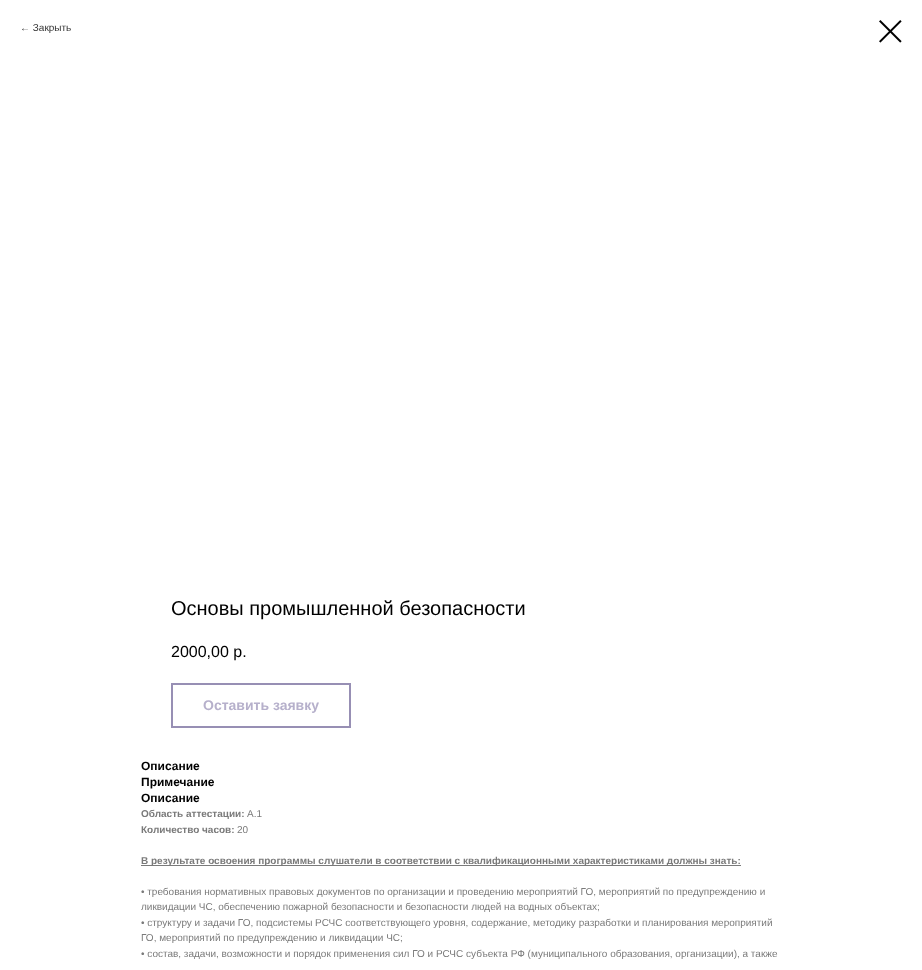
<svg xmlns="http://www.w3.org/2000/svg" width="922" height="970">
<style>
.a{font:10px Liberation Sans;fill:#333}
.b{font:20px Liberation Sans;fill:#000}
.c{font:16px Liberation Sans;fill:#000}
.d{font:bold 14px Liberation Sans;fill:#b6b0cb}
.e{font:bold 12px Liberation Sans;fill:#000}
.f{font:bold 10px Liberation Sans;fill:#7a7a7a}
.g{font:10px Liberation Sans;fill:#7a7a7a}
</style>
<rect width="100%" height="100%" fill="#fff"/>
<image href="1.png" x="879" y="20" width="23" height="23"/>
<path fill="none" stroke="#978fb4" stroke-width="2" d="M172 684h178v43H172z"/>
<path fill="#7a7a7a" d="M141 865h600v1H141z"/>
<text class="a" x="20" y="31">← Закрыть</text>
<text class="b" x="171" y="615">Основы промышленной безопасности</text>
<text class="c" x="171" y="657">2000,00 р.</text>
<text class="d" x="203" y="710">Оставить заявку</text>
<text class="e" x="141" y="770">Описание</text>
<text class="e" x="141" y="786">Примечание</text>
<text class="e" x="141" y="802">Описание</text>
<text class="f" x="141" y="817">Область аттестации:</text>
<text class="g" x="247" y="817">А.1</text>
<text class="f" x="141" y="833">Количество часов:</text>
<text class="g" x="237" y="833">20</text>
<text class="f" x="141" y="864">В результате освоения программы слушатели в соответствии с квалификационными характеристиками должны знать:</text>
<text class="g" x="141" y="895">• требования нормативных правовых документов по организации и проведению мероприятий ГО, мероприятий по предупреждению и</text>
<text class="g" x="141" y="910">ликвидации ЧС, обеспечению пожарной безопасности и безопасности людей на водных объектах;</text>
<text class="g" x="141" y="926">• структуру и задачи ГО, подсистемы РСЧС соответствующего уровня, содержание, методику разработки и планирования мероприятий</text>
<text class="g" x="141" y="941">ГО, мероприятий по предупреждению и ликвидации ЧС;</text>
<text class="g" x="141" y="957">• состав, задачи, возможности и порядок применения сил ГО и РСЧС субъекта РФ (муниципального образования, организации), а также</text>
</svg>
